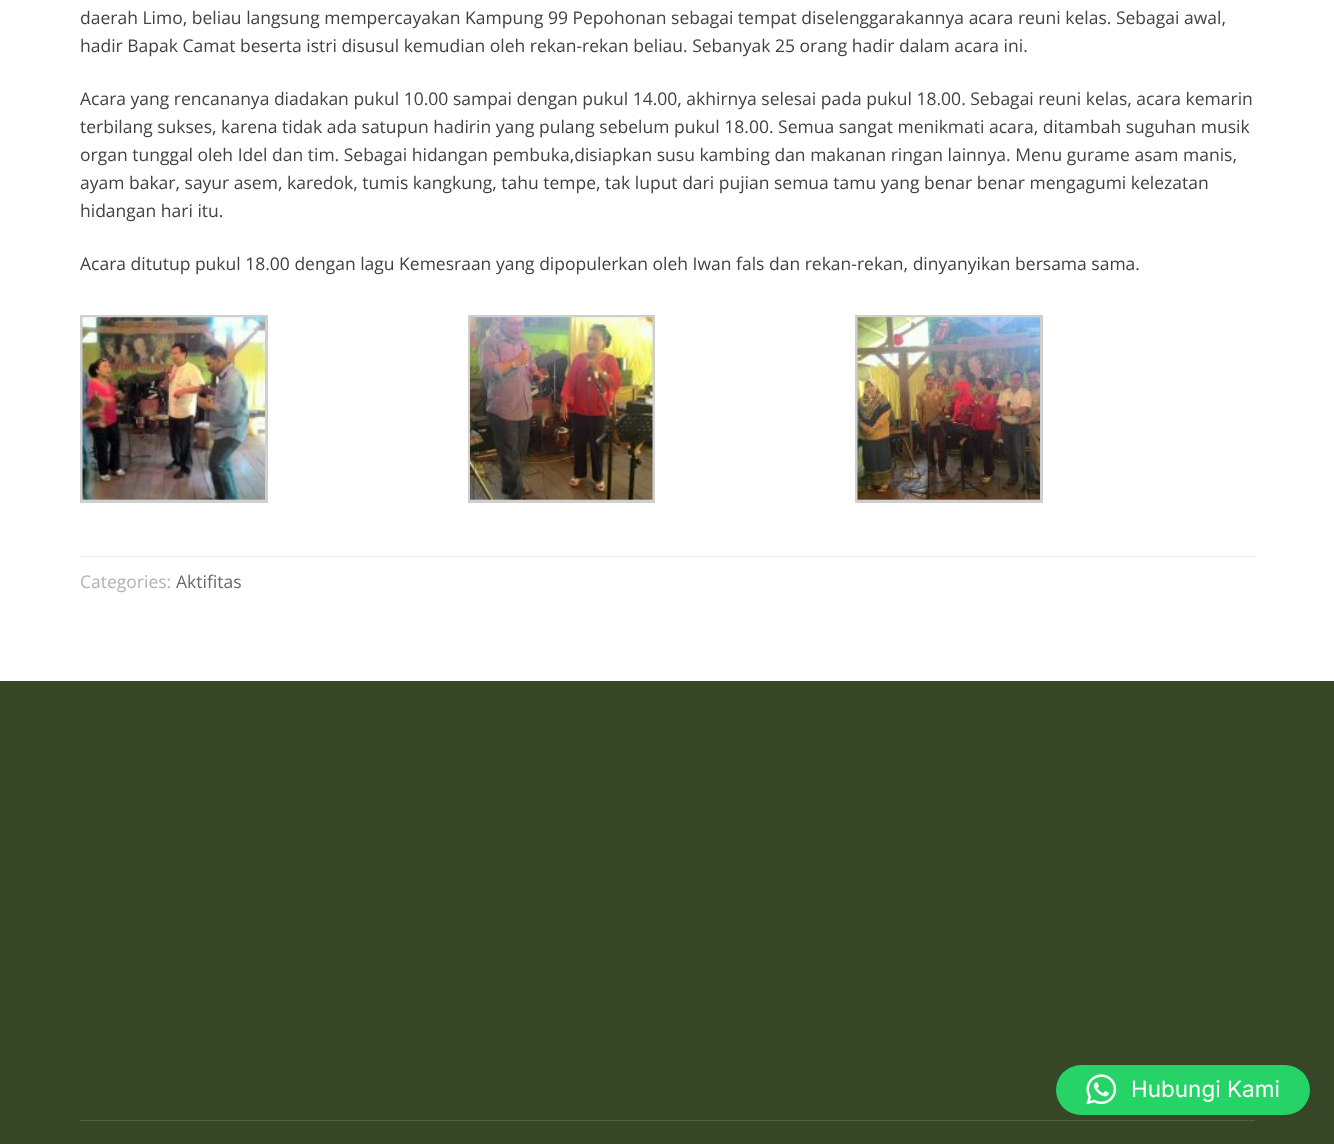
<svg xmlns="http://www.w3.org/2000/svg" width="1334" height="1144">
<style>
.a{font:17.5px Open Sans;fill:#424242}
.b{font:17.5px Open Sans;fill:#b3b1b1}
.c{font:17.5px Open Sans;fill:#686868}
.d{font:22.5px Inter;fill:#fff}
</style>
<rect width="100%" height="100%" fill="#fff"/>
<path fill="none" stroke="#cfcfcf" stroke-width="3" d="M81.5 316.5h185v185H81.5z"/>
<image href="1.png" x="82" y="317" width="183" height="183"/>
<path fill="none" stroke="#cfcfcf" stroke-width="3" d="M469.5 316.5h184v185H469.5z"/>
<image href="2.png" x="470" y="317" width="183" height="183"/>
<path fill="none" stroke="#cfcfcf" stroke-width="3" d="M856.5 316.5h185v185H856.5z"/>
<image href="3.png" x="857" y="317" width="183" height="183"/>
<path fill="#ededed" d="M80 556h1175v1H80z"/>
<path fill="#364727" d="M0 681h1334v463H0z"/>
<path fill="#526343" d="M80 1120h1175v1H80z"/>
<rect fill="#25d366" x="1056" y="1065" width="254" height="50" rx="25"/>
<image href="4.png" x="1086" y="1074" width="31" height="31"/>
<text class="a" x="80" y="24">daerah Limo, beliau langsung mempercayakan Kampung 99 Pepohonan sebagai tempat diselenggarakannya acara reuni kelas. Sebagai awal,</text>
<text class="a" x="80" y="52">hadir Bapak Camat beserta istri disusul kemudian oleh rekan-rekan beliau. Sebanyak 25 orang hadir dalam acara ini.</text>
<text class="a" x="80" y="105">Acara yang rencananya diadakan pukul 10.00 sampai dengan pukul 14.00, akhirnya selesai pada pukul 18.00. Sebagai reuni kelas, acara kemarin</text>
<text class="a" x="80" y="133">terbilang sukses, karena tidak ada satupun hadirin yang pulang sebelum pukul 18.00. Semua sangat menikmati acara, ditambah suguhan musik</text>
<text class="a" x="80" y="161">organ tunggal oleh Idel dan tim. Sebagai hidangan pembuka,disiapkan susu kambing dan makanan ringan lainnya. Menu gurame asam manis,</text>
<text class="a" x="80" y="189">ayam bakar, sayur asem, karedok, tumis kangkung, tahu tempe, tak luput dari pujian semua tamu yang benar benar mengagumi kelezatan</text>
<text class="a" x="80" y="217">hidangan hari itu.</text>
<text class="a" x="80" y="270">Acara ditutup pukul 18.00 dengan lagu Kemesraan yang dipopulerkan oleh Iwan fals dan rekan-rekan, dinyanyikan bersama sama.</text>
<text class="b" x="80" y="588">Categories:</text>
<text class="c" x="176" y="588">Aktifitas</text>
<text class="d" x="1131" y="1097">Hubungi Kami</text>
</svg>
